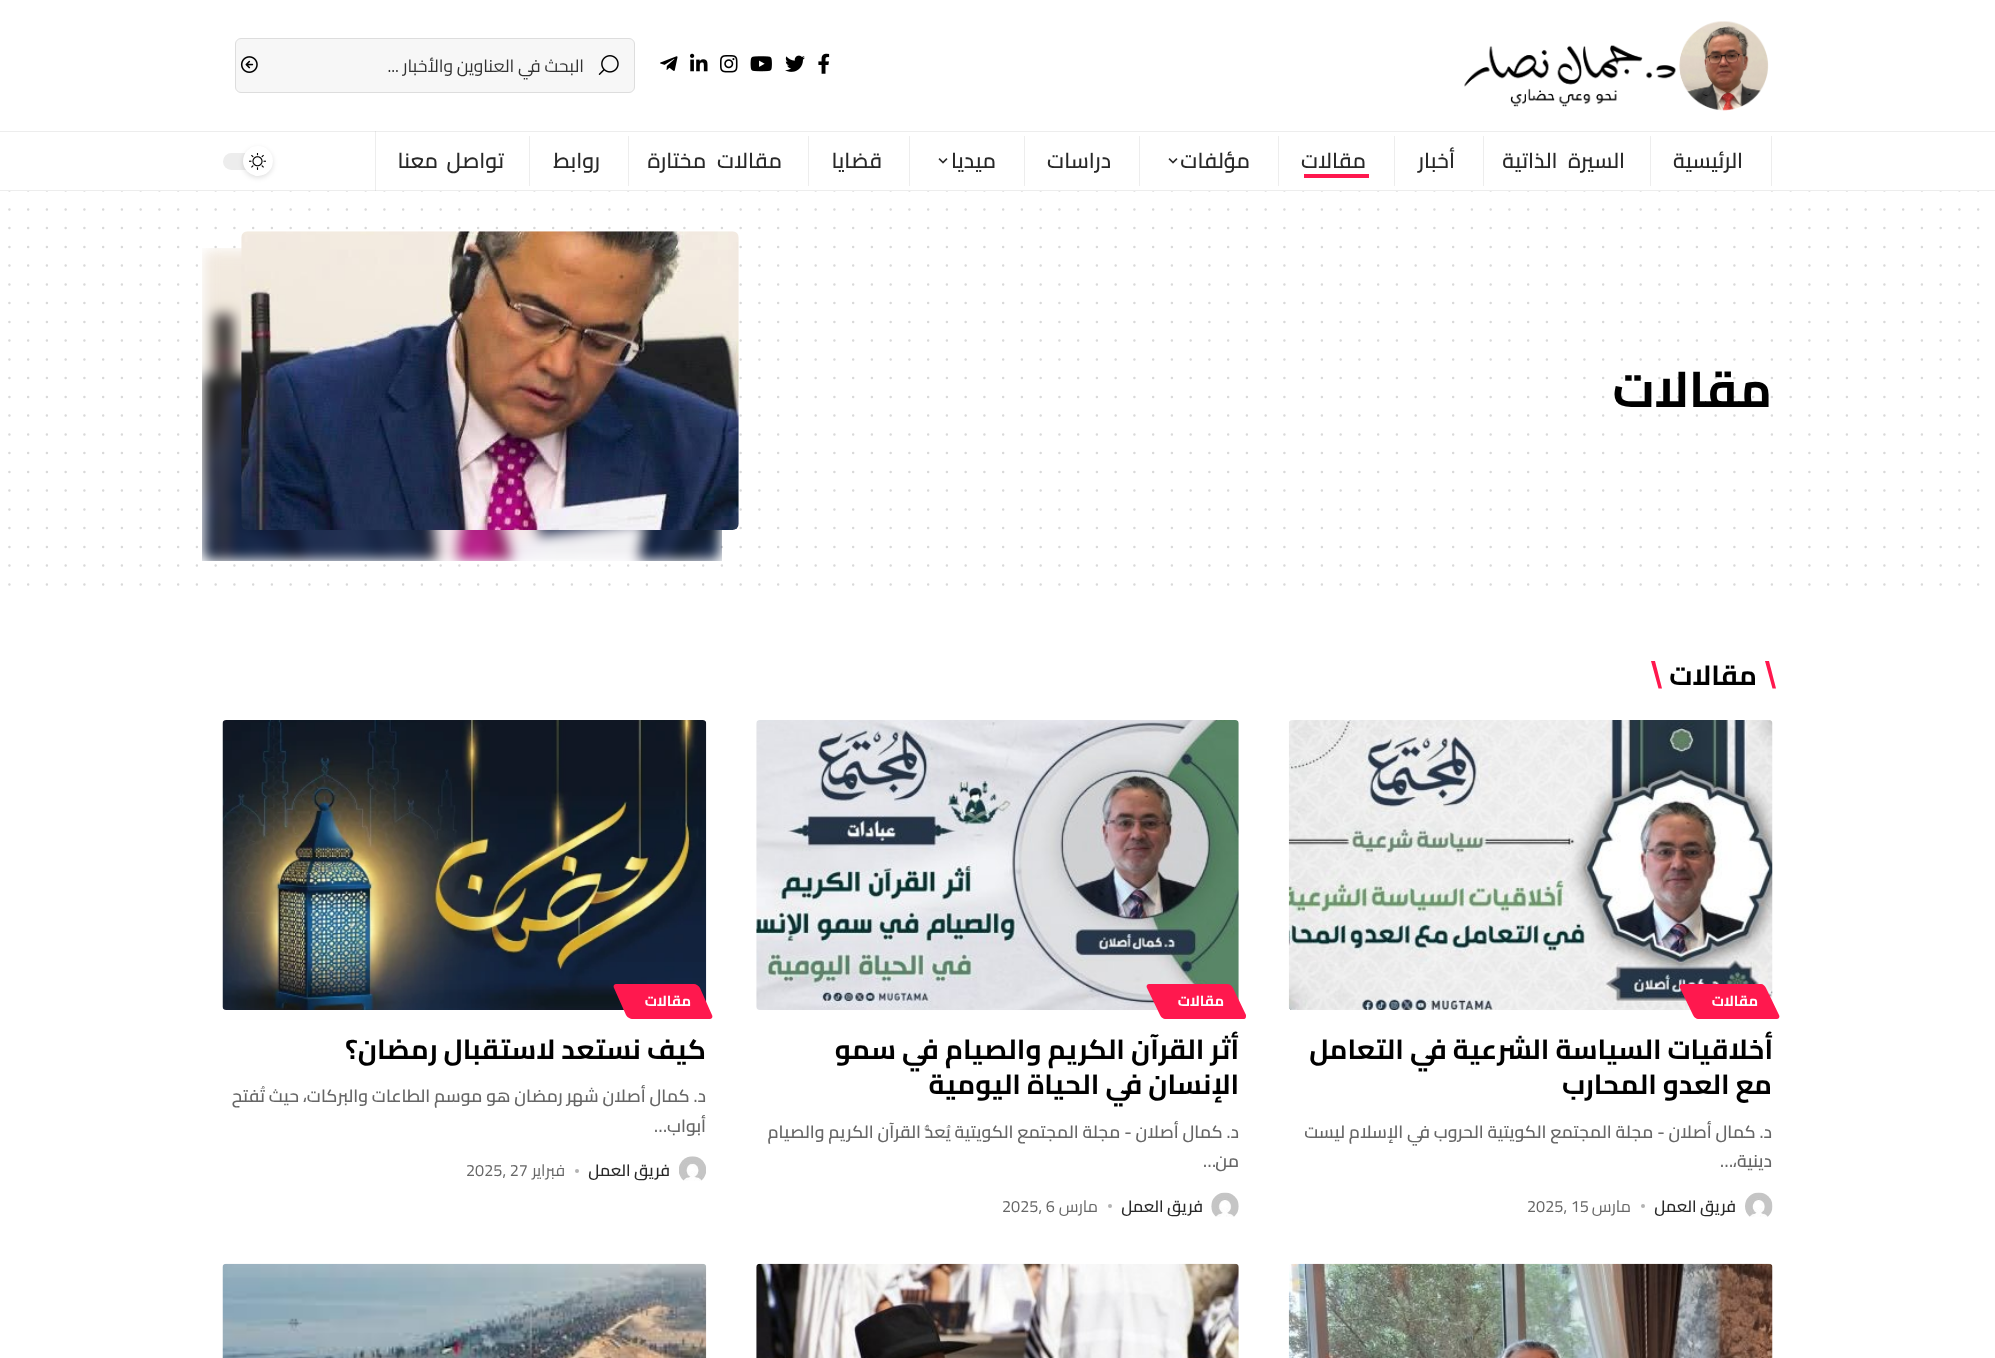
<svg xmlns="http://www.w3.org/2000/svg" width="1995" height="1358">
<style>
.a{font:17.5px Cairo;direction:rtl;fill:#313131}
.b{font:600 21.25px Cairo;letter-spacing:-0.5px;direction:rtl;fill:#282828}
.c{font:bold 50px Cairo;direction:rtl;fill:#000}
.d{font:bold 27.5px Cairo;direction:rtl;fill:#000}
.e{font:bold 14.5px Cairo;letter-spacing:1px;direction:rtl;fill:#fff}
.f{font:600 17.5px Cairo;direction:rtl;fill:#666}
.g{font:600 17.5px Cairo;fill:#666}
.h{font:600 16.25px Cairo;direction:rtl;fill:#282828}
.i{font:16.25px Cairo;direction:rtl;fill:#666}
.j{font:16.25px Cairo;fill:#666}
</style>
<rect width="100%" height="100%" fill="#fff"/>
<image href="1.png" x="1464" y="21" width="305" height="90"/>
<image href="2.png" x="818" y="53" width="12" height="21"/>
<image href="3.png" x="785" y="55" width="20" height="17"/>
<image href="4.png" x="750" y="56" width="22" height="16"/>
<image href="5.png" x="720" y="55" width="18" height="18"/>
<image href="6.png" x="690" y="53" width="18" height="19"/>
<image href="7.png" x="660" y="56" width="18" height="15"/>
<rect fill="#f7f7f7" stroke="#ddd" x="235.5" y="38.5" width="399" height="54" rx="5.5"/>
<image href="8.png" x="598" y="55" width="21" height="20"/>
<image href="9.png" x="240" y="56" width="18" height="17"/>
<path fill="none" stroke="#d9d9d9" stroke-width="2.5" stroke-linecap="round" stroke-dasharray="0 18.75" d="M9.4 190.6h1969"/>
<path fill="#fff" d="M8 189h1972v2H8z"/>
<path fill="#ededed" d="M375 131h1v60H375z"/>
<path fill="#ededed" d="M0 131h1995v1H0z"/>
<path fill="#dedede" d="M375 131h1v1H375z"/>
<path fill="#ededed" d="M1771 136h1v50H1771z"/>
<path fill="#ededed" d="M1650 136h1v50H1650z"/>
<path fill="#ededed" d="M1483 136h1v50H1483z"/>
<path fill="#ededed" d="M1394 136h1v50H1394z"/>
<path fill="#ff184e" d="M1304 174h65v4H1304z"/>
<path fill="#ededed" d="M1278 136h1v50H1278z"/>
<image href="10.png" x="1168" y="158" width="10" height="6"/>
<path fill="#ededed" d="M1139 136h1v50H1139z"/>
<path fill="#ededed" d="M1024 136h1v50H1024z"/>
<image href="10.png" x="938" y="158" width="10" height="6"/>
<path fill="#ededed" d="M909 136h1v50H909z"/>
<path fill="#ededed" d="M808 136h1v50H808z"/>
<path fill="#ededed" d="M628 136h1v50H628z"/>
<path fill="#ededed" d="M529 136h1v50H529z"/>
<rect fill="#ededed" x="223" y="153" width="50" height="17" rx="8.5"/>
<rect fill="#0000001f" filter="blur(2.5px)" x="243" y="148" width="30" height="30" rx="15"/>
<circle fill="#fff" cx="258" cy="161" r="15"/>
<image href="11.png" x="249" y="153" width="17" height="17"/>
<path fill="#88888826" d="M0 190h1995v1H0z"/>
<path fill="none" stroke="#d9d9d9" stroke-width="2.5" stroke-linecap="round" stroke-dasharray="0 18.75" d="M9.4 209.4h1969"/>
<path fill="none" stroke="#d9d9d9" stroke-width="2.5" stroke-linecap="round" stroke-dasharray="0 18.75" d="M9.4 228.1h1969"/>
<path fill="none" stroke="#d9d9d9" stroke-width="2.5" stroke-linecap="round" stroke-dasharray="0 18.75" d="M9.4 246.9h1969"/>
<path fill="none" stroke="#d9d9d9" stroke-width="2.5" stroke-linecap="round" stroke-dasharray="0 18.75" d="M9.4 265.6h1969"/>
<path fill="none" stroke="#d9d9d9" stroke-width="2.5" stroke-linecap="round" stroke-dasharray="0 18.75" d="M9.4 284.4h1969"/>
<path fill="none" stroke="#d9d9d9" stroke-width="2.5" stroke-linecap="round" stroke-dasharray="0 18.75" d="M9.4 303.1h1969"/>
<path fill="none" stroke="#d9d9d9" stroke-width="2.5" stroke-linecap="round" stroke-dasharray="0 18.75" d="M9.4 321.9h1969"/>
<path fill="none" stroke="#d9d9d9" stroke-width="2.5" stroke-linecap="round" stroke-dasharray="0 18.75" d="M9.4 340.6h1969"/>
<path fill="none" stroke="#d9d9d9" stroke-width="2.5" stroke-linecap="round" stroke-dasharray="0 18.75" d="M9.4 359.4h1969"/>
<path fill="none" stroke="#d9d9d9" stroke-width="2.5" stroke-linecap="round" stroke-dasharray="0 18.75" d="M9.4 378.1h1969"/>
<path fill="none" stroke="#d9d9d9" stroke-width="2.5" stroke-linecap="round" stroke-dasharray="0 18.75" d="M9.4 396.9h1969"/>
<path fill="none" stroke="#d9d9d9" stroke-width="2.5" stroke-linecap="round" stroke-dasharray="0 18.75" d="M9.4 415.6h1969"/>
<path fill="none" stroke="#d9d9d9" stroke-width="2.5" stroke-linecap="round" stroke-dasharray="0 18.75" d="M9.4 434.4h1969"/>
<path fill="none" stroke="#d9d9d9" stroke-width="2.5" stroke-linecap="round" stroke-dasharray="0 18.75" d="M9.4 453.1h1969"/>
<path fill="none" stroke="#d9d9d9" stroke-width="2.5" stroke-linecap="round" stroke-dasharray="0 18.75" d="M9.4 471.9h1969"/>
<path fill="none" stroke="#d9d9d9" stroke-width="2.5" stroke-linecap="round" stroke-dasharray="0 18.75" d="M9.4 490.6h1969"/>
<path fill="none" stroke="#d9d9d9" stroke-width="2.5" stroke-linecap="round" stroke-dasharray="0 18.75" d="M9.4 509.4h1969"/>
<path fill="none" stroke="#d9d9d9" stroke-width="2.5" stroke-linecap="round" stroke-dasharray="0 18.75" d="M9.4 528.1h1969"/>
<path fill="none" stroke="#d9d9d9" stroke-width="2.5" stroke-linecap="round" stroke-dasharray="0 18.75" d="M9.4 546.9h1969"/>
<path fill="none" stroke="#d9d9d9" stroke-width="2.5" stroke-linecap="round" stroke-dasharray="0 18.75" d="M9.4 565.6h1969"/>
<path fill="none" stroke="#d9d9d9" stroke-width="2.5" stroke-linecap="round" stroke-dasharray="0 18.75" d="M9.4 584.4h1969"/>
<image href="13.png" x="202" y="248" width="520" height="313"/>
<image href="12.png" x="241" y="231" width="498" height="299"/>
<path fill="#ff184e" d="M1765 661h4l7 27.5h-3.5z"/>
<path fill="#ff184e" d="M1651 661h4l7 27.5h-3.5z"/>
<image href="14.png" x="1288" y="720" width="485" height="290"/>
<path fill="#ff184e" d="M1682 984h79c2 0 4 2 5 4l13 27c1 2 0 4-2 4h-79c-2 0-4-2-5-4l-13-27c-1-2 0-4 2-4z"/>
<image href="15.png" x="1745" y="1192" width="28" height="25"/>
<circle fill="#b3b3b3" cx="1643" cy="1206" r="2"/>
<image href="16.png" x="756" y="720" width="483" height="290"/>
<path fill="#ff184e" d="M1149 984h78c3 0 5 2 6 4l13 27c0 2 0 4-2 4h-79c-2 0-4-2-5-4l-13-27c-1-2 0-4 2-4z"/>
<image href="17.png" x="1211" y="1192" width="28" height="25"/>
<circle fill="#b3b3b3" cx="1110" cy="1206" r="2"/>
<image href="18.png" x="222" y="720" width="485" height="290"/>
<path fill="#ff184e" d="M616 984h78c2 0 5 2 6 4l12 27c1 2 0 4-2 4h-78c-2 0-5-2-6-4l-12-27c-1-2 0-4 2-4z"/>
<image href="19.png" x="679" y="1156" width="27" height="25"/>
<circle fill="#b3b3b3" cx="577" cy="1171" r="2"/>
<image href="20.png" x="1288" y="1263" width="485" height="95"/>
<image href="21.png" x="756" y="1263" width="483" height="95"/>
<image href="22.png" x="222" y="1263" width="485" height="95"/>
<text class="a" x="584" y="72">البحث في العناوين والأخبار ...</text>
<text class="b" x="1743" y="168">الرئيسية</text>
<text class="b" x="1625" y="168" word-spacing="6">السيرة الذاتية</text>
<text class="b" x="1455" y="168">أخبار</text>
<text class="b" x="1366" y="168">مقالات</text>
<text class="b" x="1250" y="168">مؤلفات</text>
<text class="b" x="1111" y="168">دراسات</text>
<text class="b" x="996" y="168">ميديا</text>
<text class="b" x="882" y="168">قضايا</text>
<text class="b" x="782" y="168" word-spacing="6">مقالات مختارة</text>
<text class="b" x="600" y="168">روابط</text>
<text class="b" x="504" y="168" word-spacing="4">تواصل معنا</text>
<text class="c" x="1772" y="407">مقالات</text>
<text class="d" x="1757" y="685">مقالات</text>
<text class="e" x="1758" y="1006">مقالات</text>
<text class="d" x="1773" y="1059">أخلاقيات السياسة الشرعية في التعامل</text>
<text class="d" x="1772" y="1094">مع العدو المحارب</text>
<text class="f" x="1772" y="1138">د. كمال أصلان - مجلة المجتمع الكويتية الحروب في الإسلام ليست</text>
<text class="f" x="1772" y="1167">دينية،</text>
<text class="g" x="1720" y="1167">…</text>
<text class="h" x="1736" y="1212">فريق العمل</text>
<text class="i" x="1631" y="1212">مارس</text>
<text class="j" x="1527" y="1212">2025, 15</text>
<text class="e" x="1224" y="1006">مقالات</text>
<text class="d" x="1239" y="1059">أثر القرآن الكريم والصيام في سمو</text>
<text class="d" x="1239" y="1094">الإنسان في الحياة اليومية</text>
<text class="f" x="1239" y="1138">د. كمال أصلان - مجلة المجتمع الكويتية يُعدُّ القرآن الكريم والصيام</text>
<text class="f" x="1239" y="1167">من</text>
<text class="g" x="1203" y="1167">…</text>
<text class="h" x="1203" y="1212">فريق العمل</text>
<text class="i" x="1098" y="1212">مارس</text>
<text class="j" x="1002" y="1212">2025, 6</text>
<text class="e" x="691" y="1006">مقالات</text>
<text class="d" x="706" y="1059">كيف نستعد لاستقبال رمضان؟</text>
<text class="f" x="706" y="1102">د. كمال أصلان شهر رمضان هو موسم الطاعات والبركات، حيث تُفتح</text>
<text class="f" x="706" y="1132">أبواب</text>
<text class="g" x="654" y="1132">…</text>
<text class="h" x="670" y="1176">فريق العمل</text>
<text class="i" x="565" y="1176">فبراير</text>
<text class="j" x="466" y="1176">2025, 27</text>
</svg>
